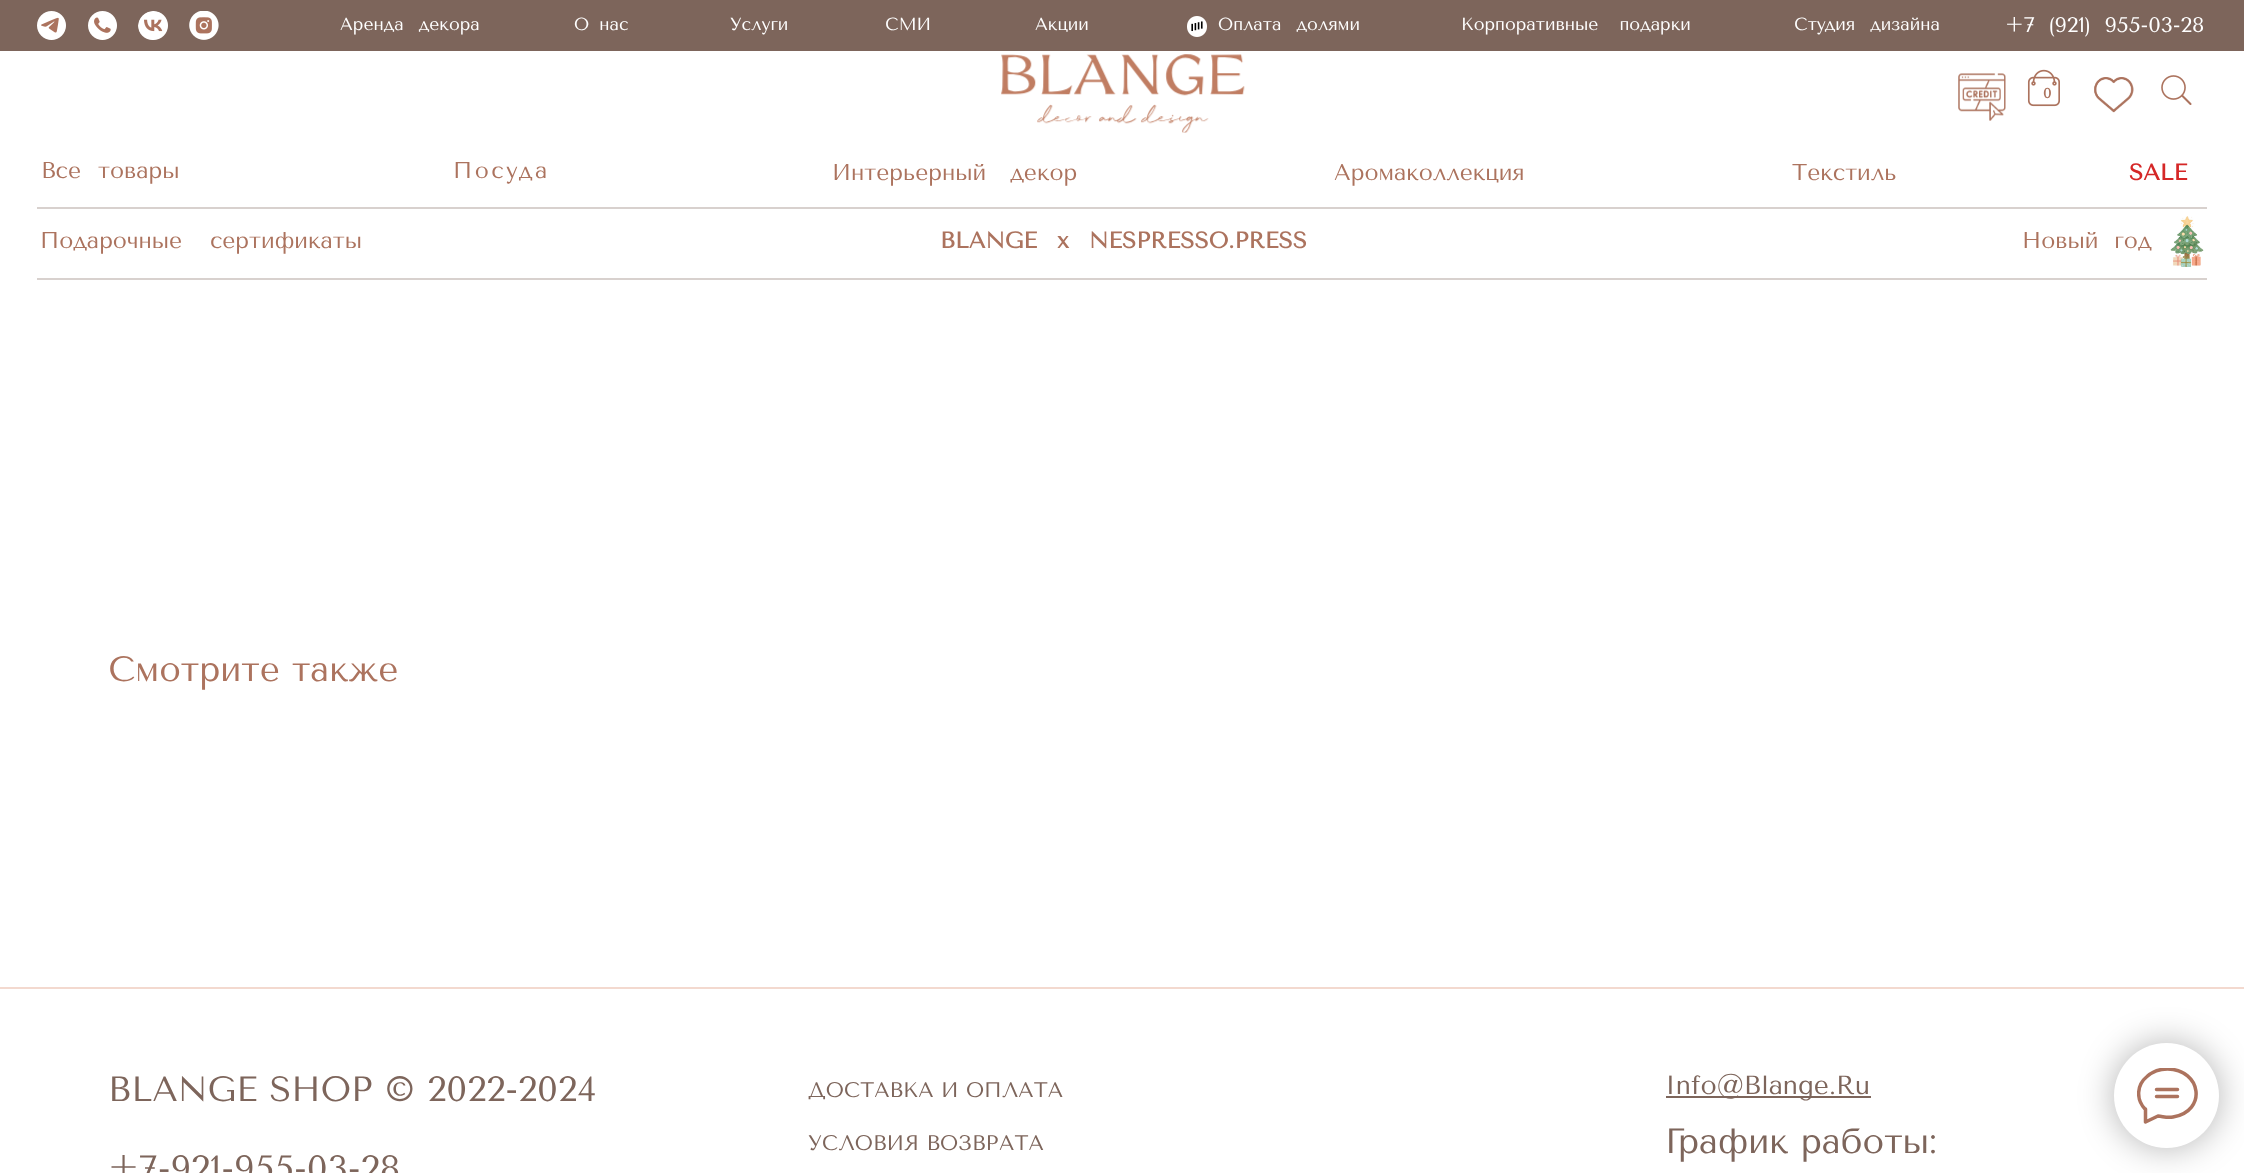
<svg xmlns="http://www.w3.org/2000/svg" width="2244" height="1173">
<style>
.a{font:17.5px Tenor Sans;fill:#fff}
.b{font:21px Tenor Sans;fill:#fff}
.c{font:bold 14px Tenor Sans;fill:#ac735e}
.d{font:22.75px Tenor Sans;fill:#ac735e}
.e{font:22.75px Tenor Sans;letter-spacing:2.5px;fill:#ac735e}
.f{font:bold 22.75px Tenor Sans;fill:#d52727}
.g{font:bold 22.75px Tenor Sans;fill:#ac735e}
.h{font:35px Tenor Sans;fill:#ac735e}
.i{font:35px Tenor Sans;fill:#7d655b}
.j{font:21px Tenor Sans;fill:#7d655b}
.k{font:26.25px Tenor Sans;fill:#7d655b}
</style>
<defs>
<clipPath id="clip1"><path d="M2137 1068h61v56H2137z"/></clipPath>
</defs>
<rect width="100%" height="100%" fill="#fff"/>
<path fill="#7d655b" d="M0 0h2244v51H0z"/>
<image href="1.png" x="37" y="11" width="29" height="29"/>
<image href="2.png" x="88" y="11" width="29" height="29"/>
<image href="3.png" x="138" y="11" width="30" height="29"/>
<image href="4.png" x="189" y="11" width="30" height="29"/>
<image href="5.png" x="1187" y="16" width="20" height="21"/>
<image href="6.png" x="1001" y="54" width="244" height="79"/>
<image href="7.png" x="1958" y="73" width="48" height="48"/>
<image href="8.png" x="2027" y="69" width="33" height="38"/>
<image href="9.png" x="2094" y="77" width="40" height="36"/>
<image href="10.png" x="2161" y="75" width="31" height="30"/>
<path fill="#d8d1ce" d="M37 207h2170v2H37z"/>
<image href="11.png" x="2170" y="216" width="34" height="51"/>
<path fill="#d8d1ce" d="M37 278h2170v2H37z"/>
<path fill="#f3d9cf" d="M0 987h2244v2H0z"/>
<path fill="#7d655b" d="M1666 1096h205v2H1666z"/>
<rect fill="#0000004d" filter="blur(17.5px)" x="2114" y="1043" width="105" height="105" rx="52.5"/>
<circle fill="#fff" cx="2166.5" cy="1095.5" r="52.5"/>
<g clip-path="url(#clip1)">
<path fill="none" stroke="#ac735e" stroke-width="3.5" stroke-linecap="round" stroke-linejoin="round" d="M2156.5 1089.5h21m-21 7h21m-32.5 12.5c-9-9.5-8.5-24 2-32.5c5.5-5 13-7.5 20.5-7.5c34 .5 40 42 5.5 48c-6 1-9.5-.5-15-1l-12.5 6v-13z"/>
</g>
<text class="a" x="340" y="30" word-spacing="9">Аренда декора</text>
<text class="a" x="574" y="30" word-spacing="4">О нас</text>
<text class="a" x="730" y="30">Услуги</text>
<text class="a" x="885" y="30">СМИ</text>
<text class="a" x="1035" y="30">Акции</text>
<text class="a" x="1218" y="30" word-spacing="9">Оплата долями</text>
<text class="a" x="1461" y="30" word-spacing="15">Корпоративные подарки</text>
<text class="a" x="1794" y="30" word-spacing="9">Студия дизайна</text>
<text class="b" x="2005" y="32" word-spacing="6">+7 (921) 955-03-28</text>
<text class="c" x="2043" y="98">0</text>
<text class="d" x="41" y="178" word-spacing="9">Все товары</text>
<text class="e" x="453" y="178">Посуда</text>
<text class="d" x="832" y="180" word-spacing="16">Интерьерный декор</text>
<text class="d" x="1334" y="180">Аромаколлекция</text>
<text class="d" x="1792" y="180">Текстиль</text>
<text class="f" x="2129" y="180">SALE</text>
<text class="d" x="40" y="248" word-spacing="20">Подарочные сертификаты</text>
<text class="g" x="940" y="248" word-spacing="12">BLANGE x NESPRESSO.PRESS</text>
<text class="d" x="2022" y="248" word-spacing="8">Новый год</text>
<text class="h" x="108" y="681">Смотрите также</text>
<text class="i" x="108" y="1101">BLANGE SHOP © 2022-2024</text>
<text class="j" x="808" y="1097">ДОСТАВКА И ОПЛАТА</text>
<text class="k" x="1665" y="1094">Info@Blange.Ru</text>
<text class="j" x="808" y="1150">УСЛОВИЯ ВОЗВРАТА</text>
<text class="i" x="1665" y="1153">График работы:</text>
<text class="i" x="108" y="1180">+7-921-955-03-28</text>
</svg>
